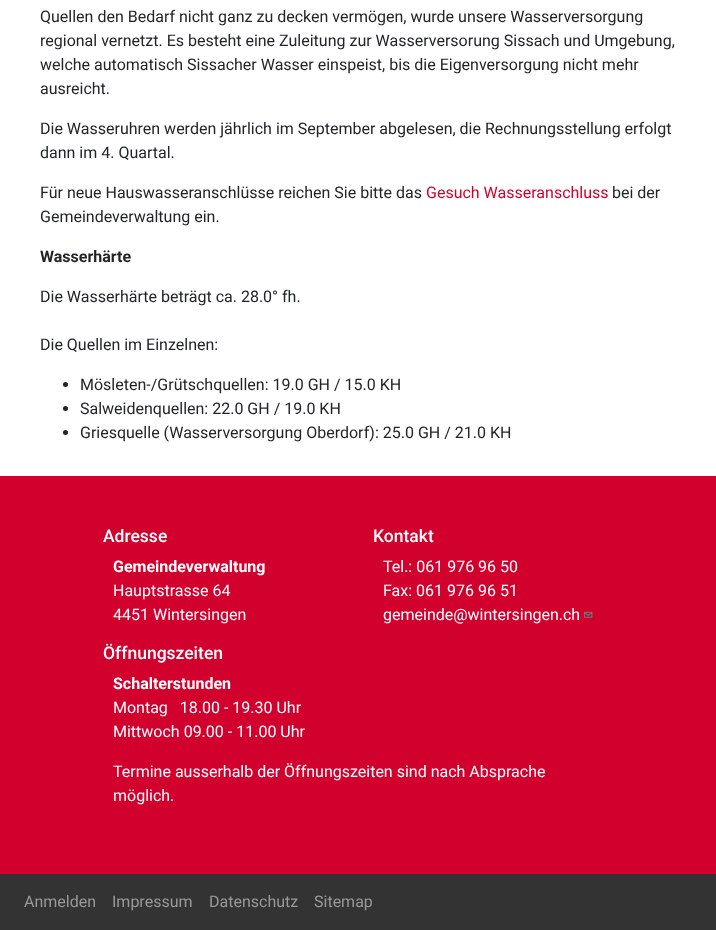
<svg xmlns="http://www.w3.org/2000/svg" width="716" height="930">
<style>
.a{font:16px Roboto;fill:#212529}
.b{font:16px Roboto;fill:#d2002d}
.c{font:bold 16px Roboto;fill:#212529}
.d{font:500 17.5px Roboto;fill:#fff}
.e{font:bold 16px Roboto;fill:#fff}
.f{font:16px Roboto;fill:#fff}
.g{font:16px Roboto;fill:#999}
</style>
<rect width="100%" height="100%" fill="#fff"/>
<circle fill="#212529" cx="65.5" cy="384.5" r="2.5"/>
<circle fill="#212529" cx="65.5" cy="408.5" r="2.5"/>
<circle fill="#212529" cx="65.5" cy="432.5" r="2.5"/>
<path fill="#d2002d" d="M0 476h716v398H0z"/>
<image href="1.png" x="583" y="611" width="10" height="7"/>
<path fill="#333" d="M0 874h716v56H0z"/>
<text class="a" x="40" y="22">Quellen den Bedarf nicht ganz zu decken vermögen, wurde unsere Wasserversorgung</text>
<text class="a" x="40" y="46">regional vernetzt. Es besteht eine Zuleitung zur Wasserversorung Sissach und Umgebung,</text>
<text class="a" x="40" y="70">welche automatisch Sissacher Wasser einspeist, bis die Eigenversorgung nicht mehr</text>
<text class="a" x="40" y="94">ausreicht.</text>
<text class="a" x="40" y="134">Die Wasseruhren werden jährlich im September abgelesen, die Rechnungsstellung erfolgt</text>
<text class="a" x="40" y="158">dann im 4. Quartal.</text>
<text class="a" x="40" y="198">Für neue Hauswasseranschlüsse reichen Sie bitte das</text>
<text class="b" x="426" y="198">Gesuch Wasseranschluss</text>
<text class="a" x="612" y="198">bei der</text>
<text class="a" x="40" y="222">Gemeindeverwaltung ein.</text>
<text class="c" x="40" y="262">Wasserhärte</text>
<text class="a" x="40" y="302">Die Wasserhärte beträgt ca. 28.0° fh.</text>
<text class="a" x="40" y="350">Die Quellen im Einzelnen:</text>
<text class="a" x="80" y="390">Mösleten-/Grütschquellen: 19.0 GH / 15.0 KH</text>
<text class="a" x="80" y="414">Salweidenquellen: 22.0 GH / 19.0 KH</text>
<text class="a" x="80" y="438">Griesquelle (Wasserversorgung Oberdorf): 25.0 GH / 21.0 KH</text>
<text class="d" x="103" y="542">Adresse</text>
<text class="e" x="113" y="572">Gemeindeverwaltung</text>
<text class="f" x="113" y="596">Hauptstrasse 64</text>
<text class="f" x="113" y="620">4451 Wintersingen</text>
<text class="d" x="373" y="542">Kontakt</text>
<text class="f" x="383" y="572">Tel.: 061 976 96 50</text>
<text class="f" x="383" y="596">Fax: 061 976 96 51</text>
<text class="f" x="383" y="620">gemeinde@wintersingen.ch</text>
<text class="d" x="103" y="659">Öffnungszeiten</text>
<text class="e" x="113" y="689">Schalterstunden</text>
<text class="f" xml:space="preserve" x="113" y="713">Montag   18.00 - 19.30 Uhr</text>
<text class="f" x="113" y="737">Mittwoch 09.00 - 11.00 Uhr</text>
<text class="f" x="113" y="777">Termine ausserhalb der Öffnungszeiten sind nach Absprache</text>
<text class="f" x="113" y="801">möglich.</text>
<text class="g" x="24" y="907">Anmelden</text>
<text class="g" x="112" y="907">Impressum</text>
<text class="g" x="209" y="907">Datenschutz</text>
<text class="g" x="314" y="907">Sitemap</text>
</svg>
